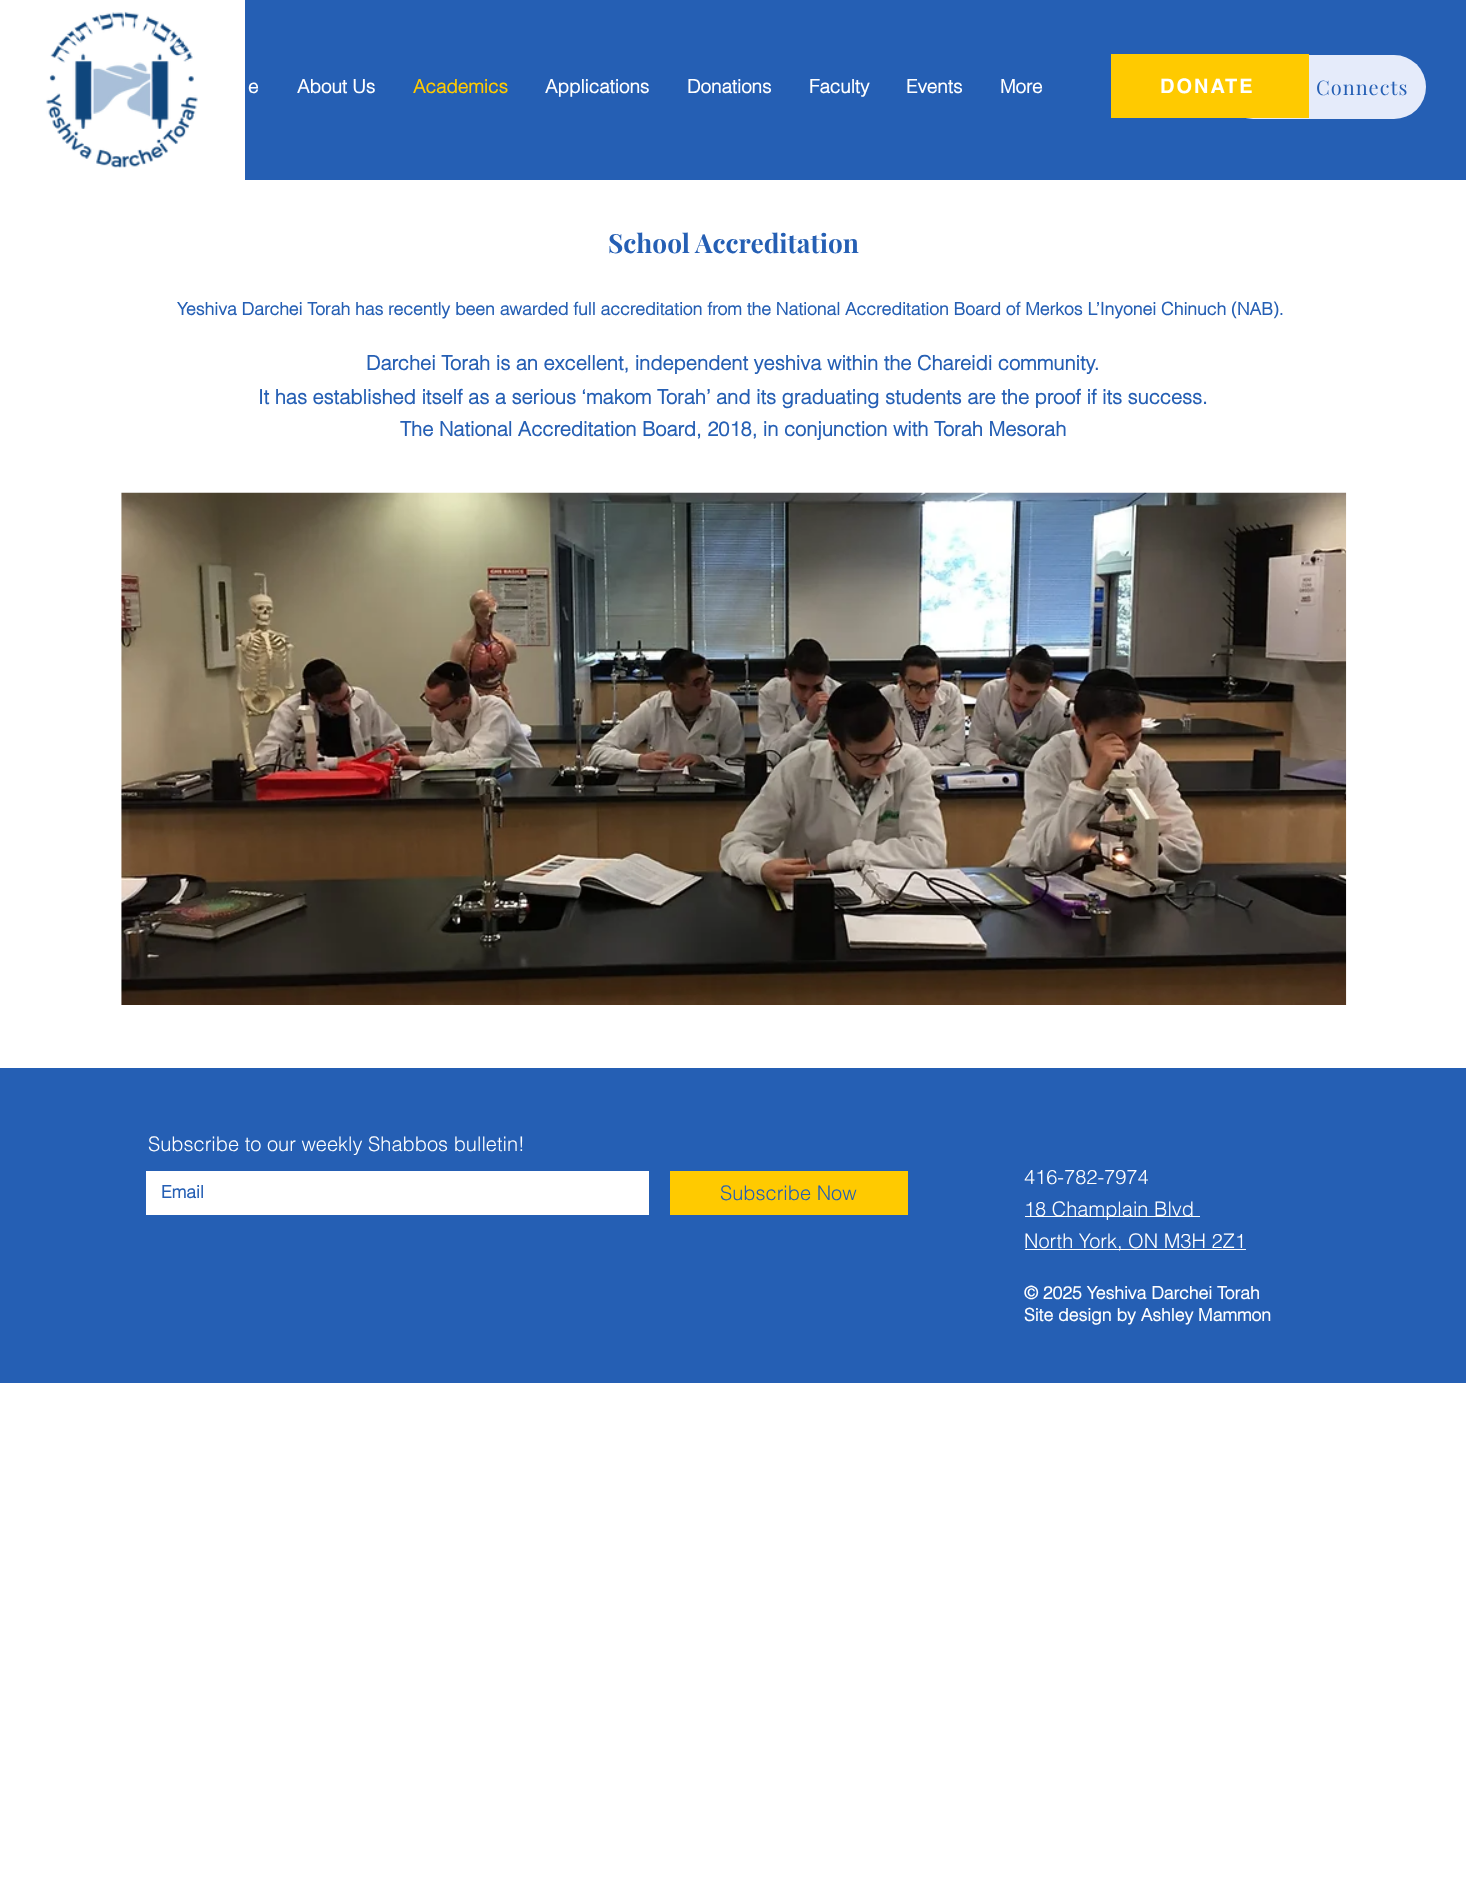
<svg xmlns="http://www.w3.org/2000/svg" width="1466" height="1890">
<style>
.a{font:bold 18.75px helvetica;fill:#fff}
.b{font:bold 18.75px helvetica;fill:#ffca00}
.c{font:bold 20px 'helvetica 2';letter-spacing:2px;fill:#fff}
.d{font:20px Playfair Display;letter-spacing:1px;fill:#255fb4}
.e{font:bold 26.25px Playfair Display;fill:#255fb4}
.f{font:bold 17.5px helvetica;fill:#255fb4}
.g{font:bold 20px helvetica;fill:#255fb4}
.h{font:300 20px helvetica;fill:#fff}
.i{font:300 20px helvetica;fill:#255fb4}
.j{font:bold 17.5px helvetica;fill:#fff}
</style>
<rect width="100%" height="100%" fill="#fff"/>
<path fill="#255fb4" d="M245 0h1221v180H245z"/>
<rect fill="#e5ebfa" x="1221" y="55" width="205" height="64" rx="32"/>
<path fill="#ffca00" d="M1111 54h198v64H1111z"/>
<image href="1.png" x="46" y="11" width="152" height="157"/>
<image href="2.png" x="121" y="492" width="1226" height="513"/>
<path fill="#255fb4" d="M0 1068h1466v315H0z"/>
<path fill="#fff" d="M146 1171h503v44H146z"/>
<path fill="#ffca00" d="M670 1171h238v44H670z"/>
<path fill="#fff" d="M1025 1216h175v1H1025z"/>
<path fill="#fff" d="M1025 1249h221v1H1025z"/>
<text class="a" x="248" y="93">e</text>
<text class="a" x="297" y="93">About Us</text>
<text class="b" x="413" y="93">Academics</text>
<text class="a" x="545" y="93">Applications</text>
<text class="a" x="687" y="93">Donations</text>
<text class="a" x="809" y="93">Faculty</text>
<text class="a" x="906" y="93">Events</text>
<text class="a" x="1000" y="93">More</text>
<text class="c" x="1160" y="93">DONATE</text>
<text class="d" x="1316" y="95">Connects</text>
<text class="e" x="608" y="253">School Accreditation</text>
<text class="f" x="177" y="315">Yeshiva Darchei Torah has recently been awarded full accreditation from the National Accreditation Board of Merkos L’Inyonei Chinuch (NAB).</text>
<text class="g" x="366" y="370">Darchei Torah is an excellent, independent yeshiva within the Chareidi community.</text>
<text class="g" x="258" y="404">It has established itself as a serious ‘makom Torah’ and its graduating students are the proof if its success.</text>
<text class="g" x="400" y="436">The National Accreditation Board, 2018, in conjunction with Torah Mesorah</text>
<text class="h" x="148" y="1151">Subscribe to our weekly Shabbos bulletin!</text>
<text class="f" x="161" y="1198">Email</text>
<text class="i" x="720" y="1200">Subscribe Now</text>
<text class="h" x="1024" y="1184">416-782-7974</text>
<text class="h" x="1024" y="1216">18 Champlain Blvd</text>
<text class="h" x="1024" y="1248">North York, ON M3H 2Z1</text>
<text class="j" x="1024" y="1299">© 2025 Yeshiva Darchei Torah</text>
<text class="j" x="1024" y="1321">Site design by Ashley Mammon</text>
</svg>
